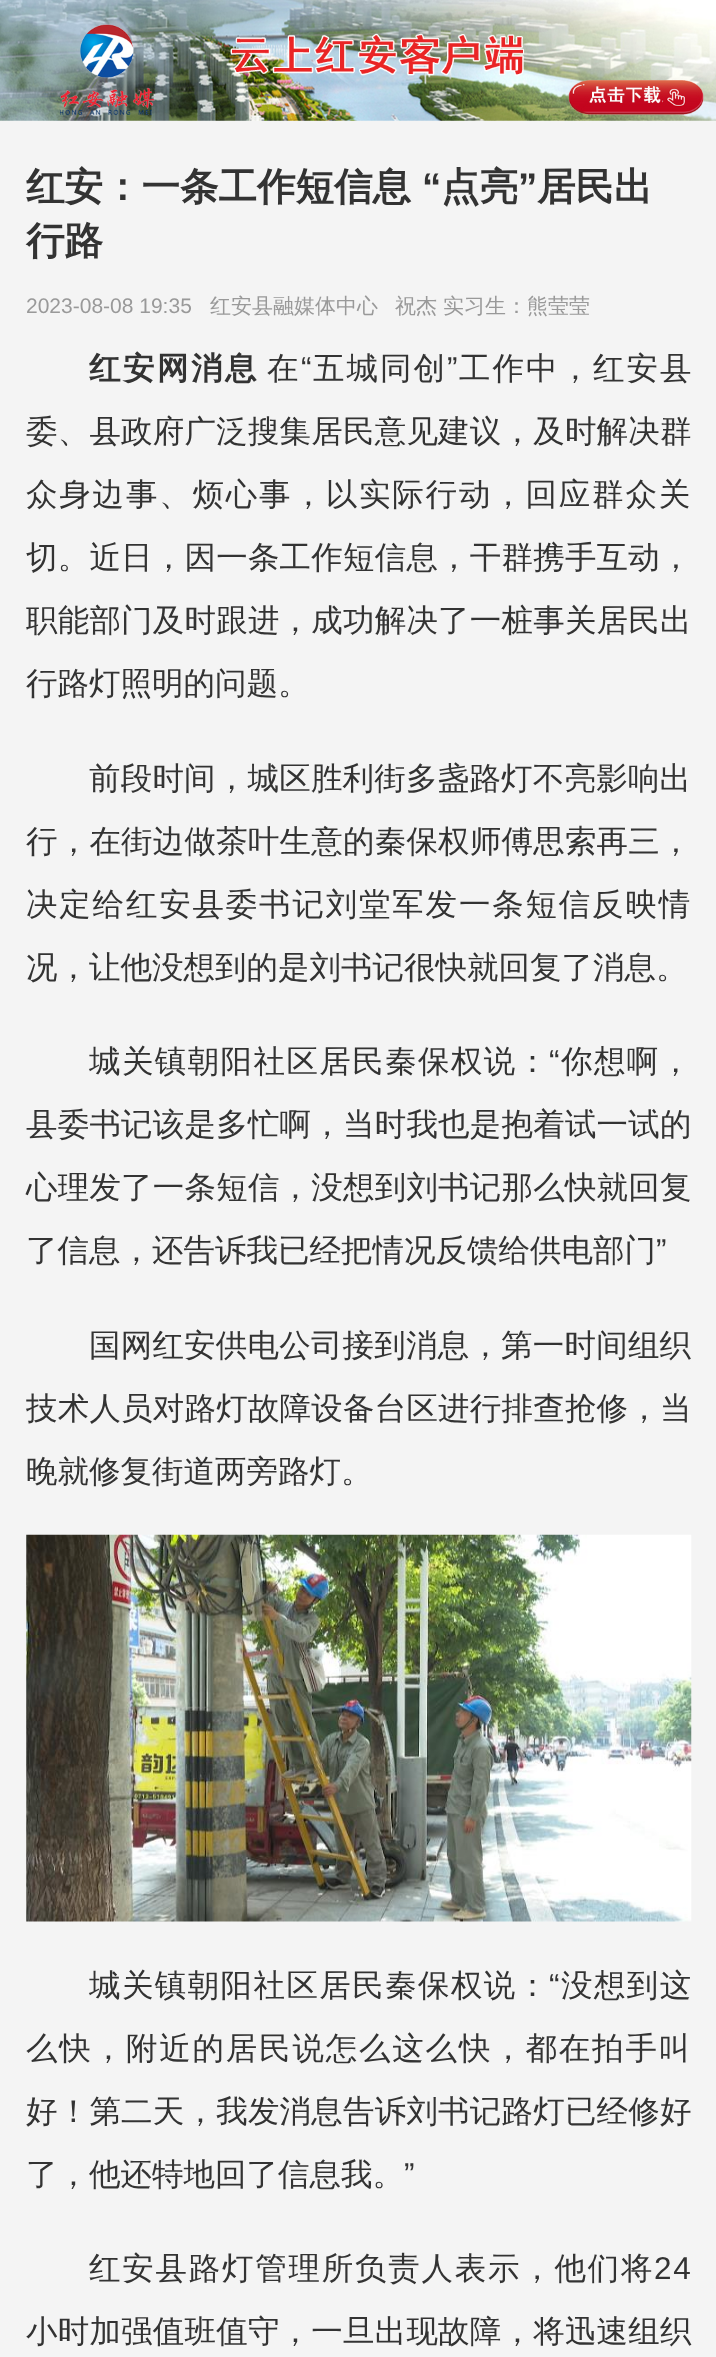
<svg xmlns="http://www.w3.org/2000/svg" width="716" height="2357">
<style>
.a{font:bold 38.5px WenQuanYi Zen Hei;fill:#333}
.b{font:bold 38.5px Liberation Sans;fill:#333}
.c{font:21px Liberation Sans;fill:#999}
.d{font:500 21px WenQuanYi Zen Hei;fill:#999}
.e{font:bold 31.5px WenQuanYi Zen Hei;letter-spacing:2.5px;fill:#333}
.f{font:500 31.5px WenQuanYi Zen Hei;letter-spacing:2px;fill:#333}
.g{font:31.5px Liberation Sans;letter-spacing:2px;fill:#333}
.h{font:500 31.5px WenQuanYi Zen Hei;letter-spacing:0.2px;fill:#333}
.i{font:500 31.5px WenQuanYi Zen Hei;letter-spacing:1.8px;fill:#333}
.j{font:500 31.5px WenQuanYi Zen Hei;fill:#333}
.k{font:500 31.5px WenQuanYi Zen Hei;letter-spacing:1.4px;fill:#333}
.l{font:31.5px Liberation Sans;letter-spacing:1.4px;fill:#333}
.m{font:31.5px Liberation Sans;fill:#333}
.n{font:500 31.5px WenQuanYi Zen Hei;letter-spacing:1.75px;fill:#333}
.o{font:31.5px Liberation Sans;letter-spacing:1.75px;fill:#333}
</style>
<rect width="100%" height="100%" fill="#f4f4f4"/>
<image href="1.png" x="0" y="0" width="716" height="121"/>
<image href="2.png" x="26" y="1534" width="666" height="388"/>
<text class="a" x="26" y="200">红安：一条工作短信息</text>
<text class="b" x="422" y="200">“</text>
<text class="a" x="441" y="200">点亮</text>
<text class="b" x="518" y="200">”</text>
<text class="a" x="537" y="200">居民出</text>
<text class="a" x="26" y="254">行路</text>
<text class="c" x="26" y="313">2023-08-08 19:35</text>
<text class="d" x="210" y="313">红安县融媒体中心</text>
<text class="d" x="395" y="313">祝杰</text>
<text class="d" x="443" y="313">实习生：熊莹莹</text>
<text class="e" x="89" y="379">红安网消息</text>
<text class="f" x="267" y="379">在</text>
<text class="g" x="301" y="379">“</text>
<text class="f" x="313" y="379">五城同创</text>
<text class="g" x="447" y="379">”</text>
<text class="f" x="459" y="379">工作中，红安县</text>
<text class="h" x="26" y="442">委、县政府广泛搜集居民意见建议，及时解决群</text>
<text class="i" x="26" y="505">众身边事、烦心事，以实际行动，回应群众关</text>
<text class="h" x="26" y="568">切。近日，因一条工作短信息，干群携手互动，</text>
<text class="h" x="26" y="631">职能部门及时跟进，成功解决了一桩事关居民出</text>
<text class="j" x="26" y="694">行路灯照明的问题。</text>
<text class="h" x="89" y="789">前段时间，城区胜利街多盏路灯不亮影响出</text>
<text class="h" x="26" y="852">行，在街边做茶叶生意的秦保权师傅思索再三，</text>
<text class="i" x="26" y="915">决定给红安县委书记刘堂军发一条短信反映情</text>
<text class="j" x="26" y="978">况，让他没想到的是刘书记很快就回复了消息。</text>
<text class="k" x="89" y="1072">城关镇朝阳社区居民秦保权说：</text>
<text class="l" x="549" y="1072">“</text>
<text class="k" x="561" y="1072">你想啊，</text>
<text class="h" x="26" y="1135">县委书记该是多忙啊，当时我也是抱着试一试的</text>
<text class="h" x="26" y="1198">心理发了一条短信，没想到刘书记那么快就回复</text>
<text class="j" x="26" y="1261">了信息，还告诉我已经把情况反馈给供电部门</text>
<text class="m" x="656" y="1261">”</text>
<text class="h" x="89" y="1356">国网红安供电公司接到消息，第一时间组织</text>
<text class="h" x="26" y="1419">技术人员对路灯故障设备台区进行排查抢修，当</text>
<text class="j" x="26" y="1482">晚就修复街道两旁路灯。</text>
<text class="k" x="89" y="1996">城关镇朝阳社区居民秦保权说：</text>
<text class="l" x="549" y="1996">“</text>
<text class="k" x="561" y="1996">没想到这</text>
<text class="i" x="26" y="2059">么快，附近的居民说怎么这么快，都在拍手叫</text>
<text class="h" x="26" y="2122">好！第二天，我发消息告诉刘书记路灯已经修好</text>
<text class="j" x="26" y="2185">了，他还特地回了信息我。</text>
<text class="m" x="404" y="2185">”</text>
<text class="n" x="89" y="2279">红安县路灯管理所负责人表示，他们将</text>
<text class="o" x="654" y="2279">24</text>
<text class="h" x="26" y="2342">小时加强值班值守，一旦出现故障，将迅速组织</text>
</svg>
